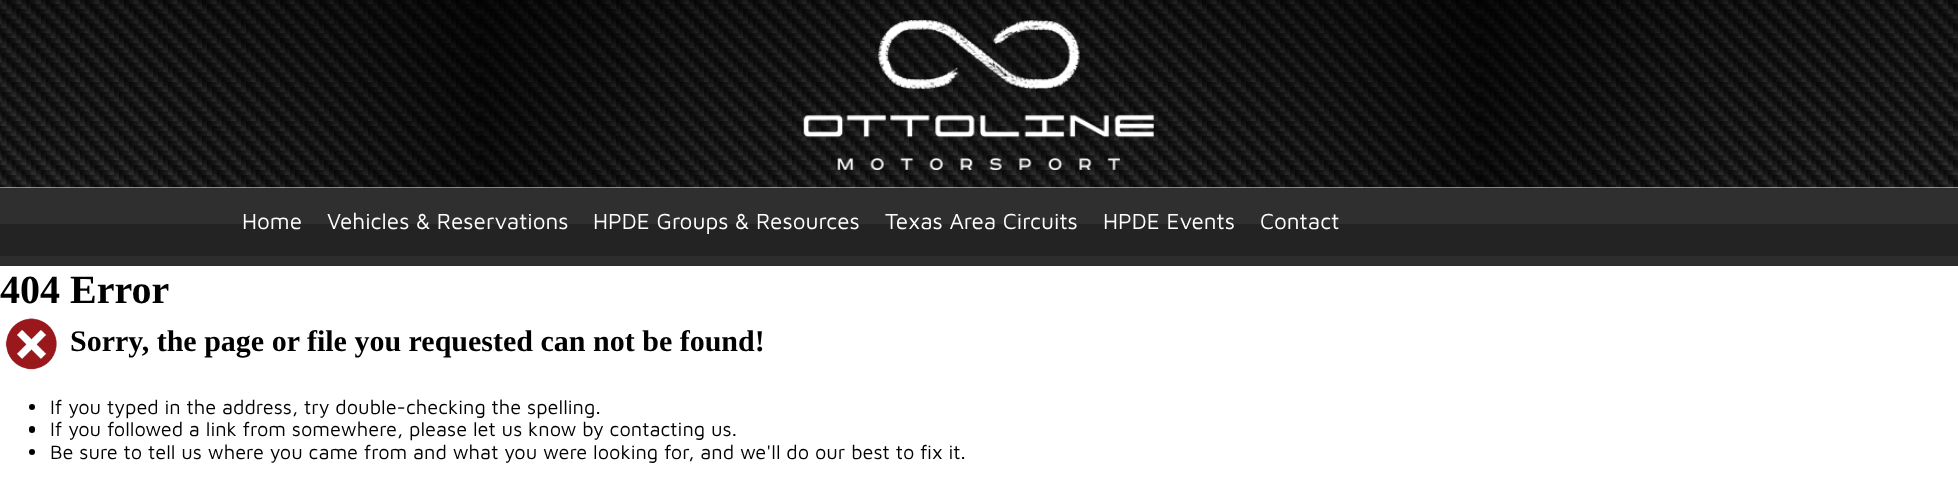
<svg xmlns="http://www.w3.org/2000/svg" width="1958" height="481">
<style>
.a{font:22.5px Maven Pro;fill:#fff}
.b{font:bold 40px Liberation Serif;fill:#000}
.c{font:bold 30px Liberation Serif;fill:#000}
.d{font:20px Maven Pro;fill:#000}
</style>
<rect width="100%" height="100%" fill="#fff"/>
<image href="1.png" x="0" y="0" width="1958" height="188"/>
<image href="2.png" x="803" y="20" width="351" height="150"/>
<path fill="#2f2f2f" d="M0 188h1958v36H0z"/>
<path fill="#232323" d="M0 224h1958v32H0z"/>
<path fill="#2d2d2d" d="M0 256h1958v10H0z"/>
<image href="3.png" x="5" y="318" width="52" height="52"/>
<circle fill="#000" cx="32" cy="407" r="3"/>
<rect fill="#000" x="29" y="426" width="6" height="7" rx="3"/>
<circle fill="#000" cx="32" cy="452" r="3"/>
<text class="a" x="242" y="229">Home</text>
<text class="a" x="327" y="229">Vehicles &amp; Reservations</text>
<text class="a" x="593" y="229">HPDE Groups &amp; Resources</text>
<text class="a" x="885" y="229">Texas Area Circuits</text>
<text class="a" x="1103" y="229">HPDE Events</text>
<text class="a" x="1260" y="229">Contact</text>
<text class="b" x="0" y="303">404 Error</text>
<text class="c" x="70" y="351">Sorry, the page or file you requested can not be found!</text>
<text class="d" x="50" y="414">If you typed in the address, try double-checking the spelling.</text>
<text class="d" x="50" y="436">If you followed a link from somewhere, please let us know by contacting us.</text>
<text class="d" x="50" y="459">Be sure to tell us where you came from and what you were looking for, and we'll do our best to fix it.</text>
</svg>
